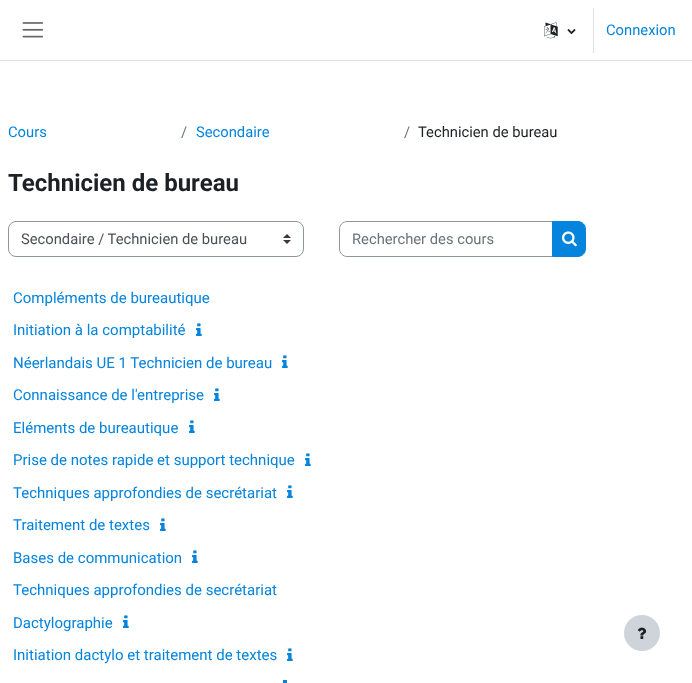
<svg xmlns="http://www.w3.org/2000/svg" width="692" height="683">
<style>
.a{font:14.75px Roboto;fill:#0484dc}
.b{font:14.75px Roboto;fill:#6a737b}
.c{font:14.75px Roboto;fill:#1d2125}
.d{font:bold 24px Roboto;fill:#1d2125}
.e{font:14.75px Roboto;fill:#495057}
.f{font:15px Roboto;fill:#0484dc}
</style>
<rect width="100%" height="100%" fill="#fff"/>
<path fill="#dee2e6" d="M0 60h692v1H0z"/>
<image href="1.png" x="22" y="22" width="21" height="16"/>
<image href="2.png" x="544" y="22" width="14" height="17"/>
<image href="3.png" x="567" y="29" width="9" height="6"/>
<path fill="#dee2e6" d="M593 8h1v45H593z"/>
<image href="4.png" x="283" y="234" width="8" height="10"/>
<rect fill="none" stroke="#8f959e" x="8.5" y="221.5" width="295" height="35" rx="7.5"/>
<path fill="none" stroke="#8f959e" d="M347 221.5h205.5v35h-205.5c-4 0-7.5-3.5-7.5-7.5v-20c0-4 3.5-7.5 7.5-7.5z"/>
<path fill="#0484dc" stroke="#0484dc" d="M552.5 221.5h25.5c4 0 7.5 3.5 7.5 7.5v20c0 4-3.5 7.5-7.5 7.5h-25.5z"/>
<image href="5.png" x="562" y="231" width="15" height="16"/>
<image href="6.png" x="196" y="323" width="6" height="13"/>
<image href="6.png" x="282" y="355" width="6" height="13"/>
<image href="6.png" x="214" y="388" width="6" height="13"/>
<image href="6.png" x="189" y="420" width="6" height="13"/>
<image href="6.png" x="305" y="453" width="6" height="13"/>
<image href="6.png" x="287" y="485" width="6" height="13"/>
<image href="6.png" x="160" y="518" width="6" height="13"/>
<image href="6.png" x="192" y="550" width="6" height="13"/>
<image href="6.png" x="123" y="615" width="6" height="13"/>
<image href="6.png" x="287" y="648" width="6" height="13"/>
<path fill="#0484dc" d="M283 680h4v3H283z"/>
<circle fill="#ced4da" cx="642" cy="633" r="18"/>
<image href="7.png" x="637" y="627" width="10" height="12"/>
<text class="a" x="606" y="35">Connexion</text>
<text class="a" x="8" y="137">Cours</text>
<text class="b" x="181" y="137">/</text>
<text class="a" x="196" y="137">Secondaire</text>
<text class="b" x="404" y="137">/</text>
<text class="c" x="418" y="137">Technicien de bureau</text>
<text class="d" x="8" y="191">Technicien de bureau</text>
<text class="e" x="21" y="244">Secondaire / Technicien de bureau</text>
<text class="b" x="352" y="244">Rechercher des cours</text>
<text class="f" x="13" y="303">Compléments de bureautique</text>
<text class="f" x="13" y="335">Initiation à la comptabilité</text>
<text class="f" x="13" y="368">Néerlandais UE 1 Technicien de bureau</text>
<text class="f" x="13" y="400">Connaissance de l'entreprise</text>
<text class="f" x="13" y="433">Eléments de bureautique</text>
<text class="f" x="13" y="465">Prise de notes rapide et support technique</text>
<text class="f" x="13" y="498">Techniques approfondies de secrétariat</text>
<text class="f" x="13" y="530">Traitement de textes</text>
<text class="f" x="13" y="563">Bases de communication</text>
<text class="f" x="13" y="595">Techniques approfondies de secrétariat</text>
<text class="f" x="13" y="628">Dactylographie</text>
<text class="f" x="13" y="660">Initiation dactylo et traitement de textes</text>
</svg>
